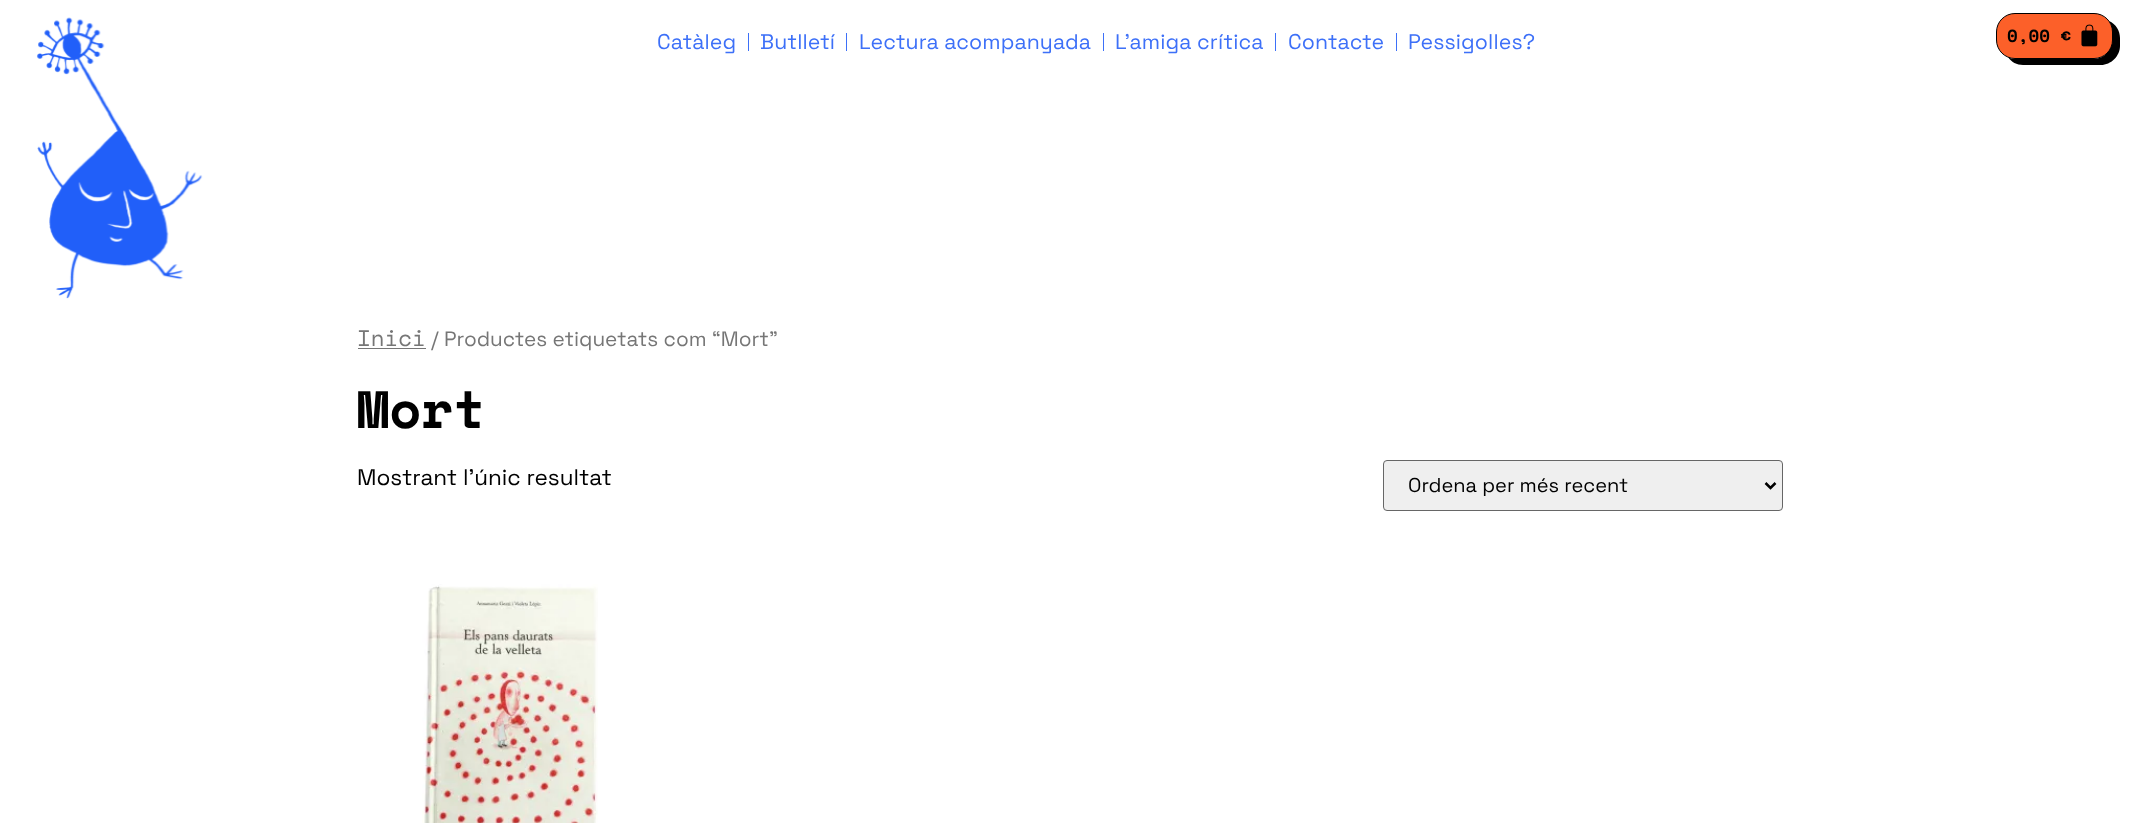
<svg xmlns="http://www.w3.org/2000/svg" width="2138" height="823">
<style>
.a{font:21.25px Space Grotesk;letter-spacing:0.1px;fill:#3d70f8}
.b{font:bold 17.5px Space Mono;fill:#000}
.c{font:22.5px Space Mono;fill:#767676}
.d{font:20.75px Space Grotesk;fill:#767676}
.e{font:bold 52.5px Space Mono;fill:#000}
.f{font:22.5px Space Grotesk;fill:#000}
.g{font:20px Space Grotesk;fill:#000}
</style>
<rect width="100%" height="100%" fill="#fff"/>
<image href="1.png" x="36" y="17" width="167" height="282"/>
<path fill="#3d70f8" d="M748 33h1v18H748z"/>
<path fill="#3d70f8" d="M846 33h1v18H846z"/>
<path fill="#3d70f8" d="M1103 33h1v18H1103z"/>
<path fill="#3d70f8" d="M1275 33h1v18H1275z"/>
<path fill="#3d70f8" d="M1396 33h1v18H1396z"/>
<path fill="#000" d="M2008 57c3 5 9 8 15 8h78c10 0 19-9 19-19v-8c0-7-4-14-11-17c2 3 3 6 3 10v9c0 10-8 19-18 19h-79c-3 0-5-1-7-2z"/>
<rect fill="#fc6029" stroke="#000" x="1996.5" y="13.5" width="116" height="45" rx="18.5"/>
<image href="2.png" x="2081" y="24" width="17" height="23"/>
<path fill="#767676" d="M358 348h68v1H358z"/>
<rect fill="#efefef" stroke="#666" x="1383.5" y="460.5" width="399" height="50" rx="3.5"/>
<path fill="none" stroke="#000" stroke-width="2.5" d="M1765.5 483l5 5l5-5"/>
<image href="3.png" x="422" y="584" width="176" height="239"/>
<text class="a" x="657" y="49">Catàleg</text>
<text class="a" x="760" y="49">Butlletí</text>
<text class="a" x="859" y="49">Lectura acompanyada</text>
<text class="a" x="1115" y="49">L’amiga crítica</text>
<text class="a" x="1288" y="49">Contacte</text>
<text class="a" x="1408" y="49">Pessigolles?</text>
<text class="b" x="2007" y="42">0,00 €</text>
<text class="c" x="357" y="346">Inici</text>
<text class="d" x="431" y="346">/ Productes etiquetats com “Mort”</text>
<text class="e" x="357" y="428">Mort</text>
<text class="f" x="357" y="485">Mostrant l'únic resultat</text>
<text class="g" x="1408" y="492">Ordena per més recent</text>
</svg>
